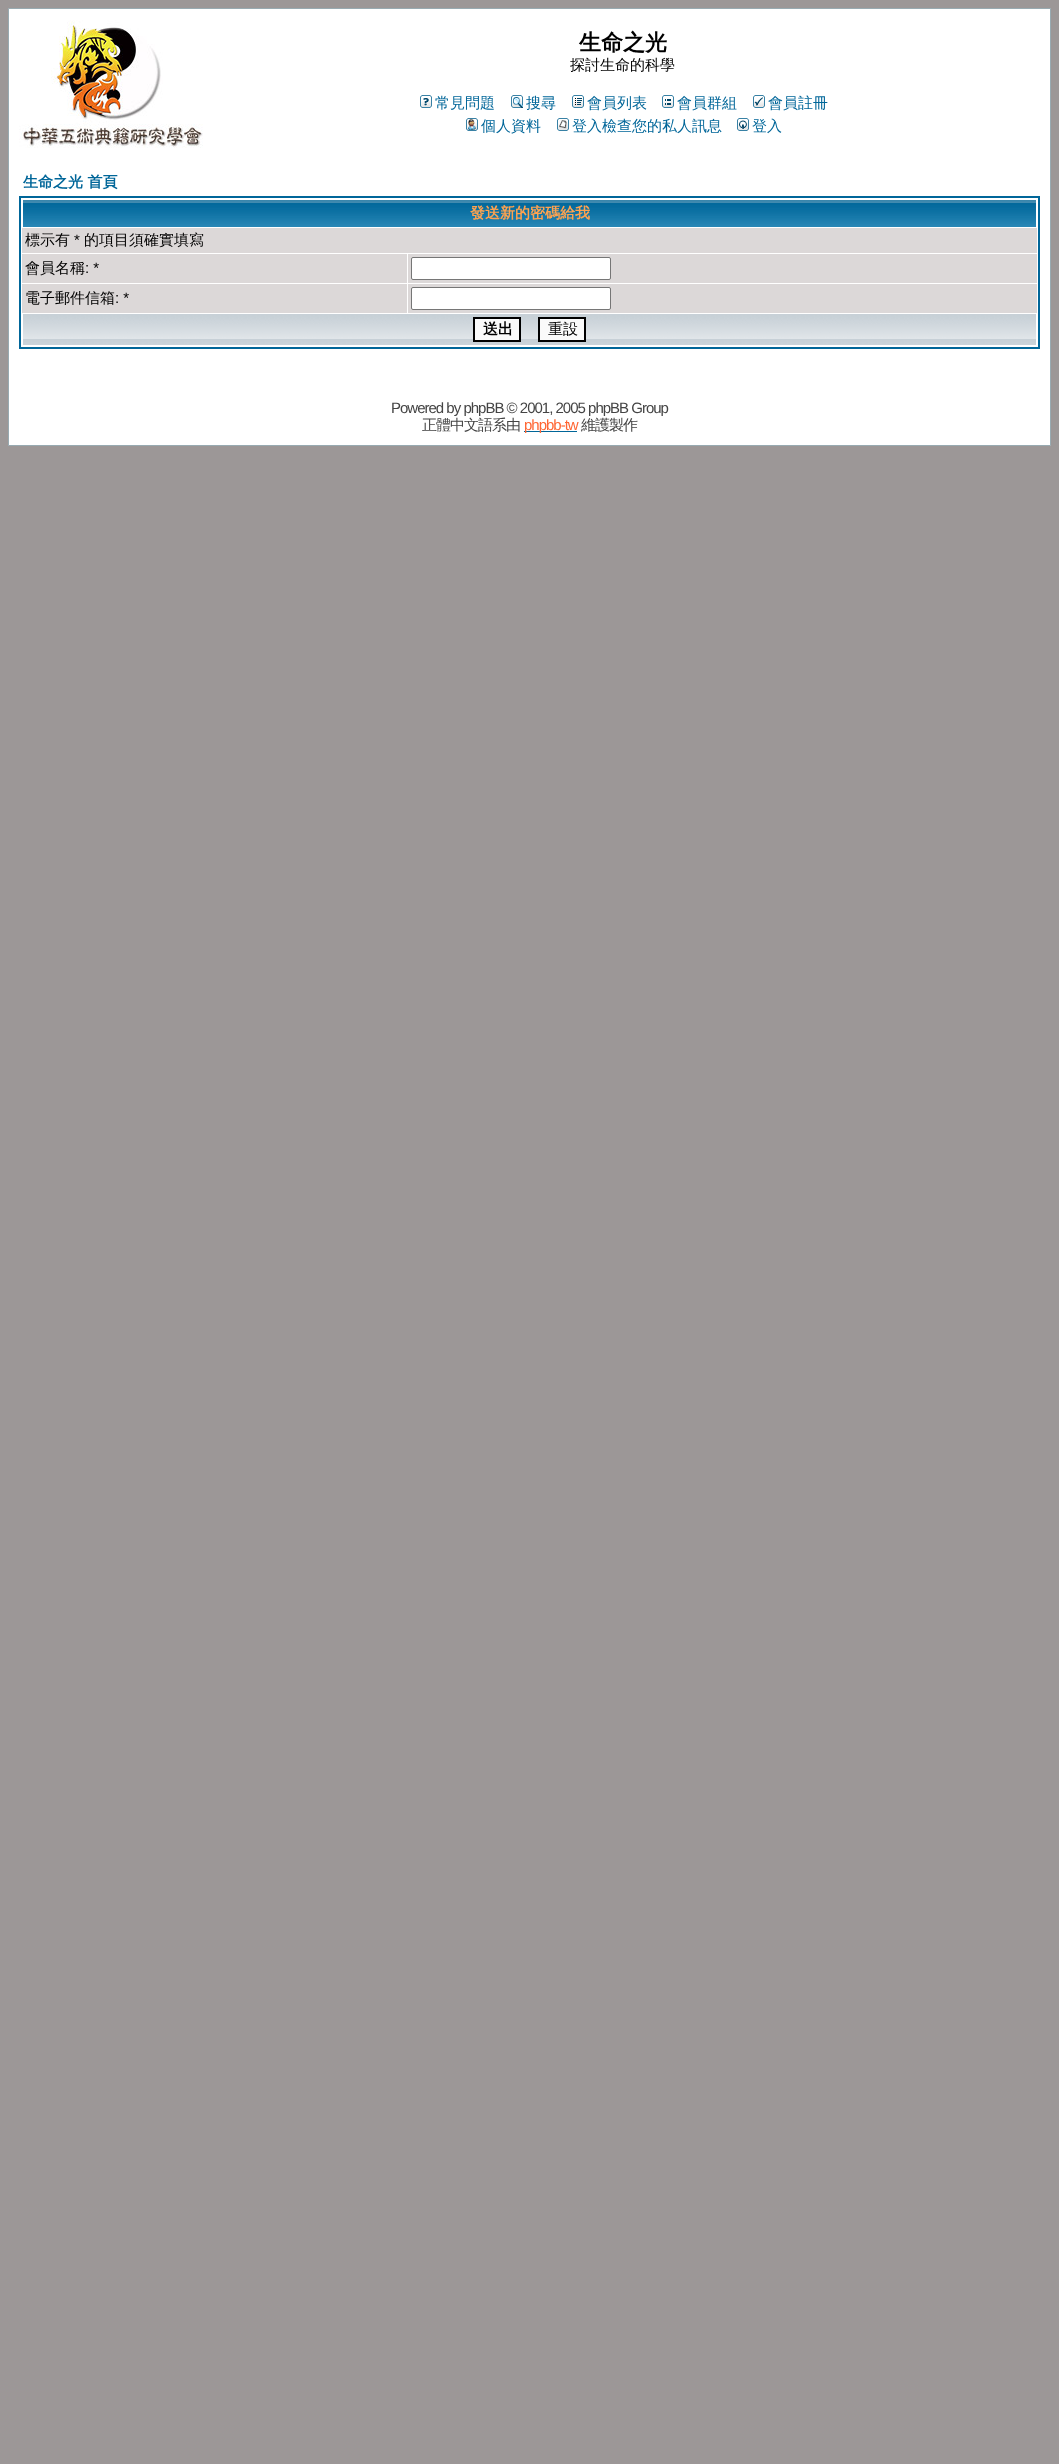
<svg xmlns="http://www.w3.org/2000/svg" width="1059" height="2464">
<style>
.a{font:bold 22px WenQuanYi Zen Hei;fill:#000}
.b{font:500 15px WenQuanYi Zen Hei;fill:#000}
.c{font:500 15px WenQuanYi Zen Hei;fill:#069}
.d{font:bold 15px WenQuanYi Zen Hei;fill:#069}
.e{font:bold 15px WenQuanYi Zen Hei;fill:#ffa34f}
.f{font:15px Liberation Sans;fill:#000}
.g{font:bold 15px WenQuanYi Zen Hei;fill:#000}
.h{font:15px Liberation Sans;letter-spacing:-1px;fill:#444}
.i{font:500 15px WenQuanYi Zen Hei;letter-spacing:-1px;fill:#444}
.j{font:15px Liberation Sans;letter-spacing:-1px;fill:#f63}
</style>
<rect width="100%" height="100%" fill="#9c9797"/>
<path fill="#fff" stroke="#98aab1" d="M8.5 8.5h1042v437H8.5z"/>
<image href="1.png" x="19" y="20" width="184" height="128"/>
<image href="2.png" x="420" y="95" width="12" height="13"/>
<image href="3.png" x="511" y="95" width="12" height="13"/>
<image href="4.png" x="572" y="95" width="12" height="13"/>
<image href="5.png" x="662" y="95" width="12" height="13"/>
<image href="6.png" x="753" y="95" width="12" height="13"/>
<image href="7.png" x="466" y="118" width="12" height="13"/>
<image href="8.png" x="557" y="118" width="12" height="13"/>
<image href="9.png" x="737" y="118" width="12" height="13"/>
<path fill="none" stroke="#069" stroke-width="2" d="M20 197h1019v151H20z"/>
<image href="10.png" x="23" y="200" width="1013" height="27"/>
<path fill="#dcd8d8" d="M22 228h1015v25H22z"/>
<path fill="#dcd8d8" d="M22 254h385v29H22z"/>
<path fill="#dcd8d8" d="M408 254h629v29H408z"/>
<rect fill="#fff" stroke="#767676" x="411.5" y="257.5" width="199" height="22" rx="1.5"/>
<path fill="#dcd8d8" d="M22 284h385v29H22z"/>
<path fill="#dcd8d8" d="M408 284h629v29H408z"/>
<rect fill="#fff" stroke="#767676" x="411.5" y="287.5" width="199" height="22" rx="1.5"/>
<image href="11.png" x="23" y="314" width="1013" height="31"/>
<path fill="#fafafa" stroke="#000" stroke-width="2" d="M474 318h46v23H474z"/>
<path fill="#fafafa" stroke="#000" stroke-width="2" d="M539 318h46v23H539z"/>
<path fill="#069" d="M524 431h53v1H524z"/>
<text class="a" x="579" y="50">生命之光</text>
<text class="b" x="570" y="70">探討生命的科學</text>
<text class="c" x="435" y="108">常見問題</text>
<text class="c" x="526" y="108">搜尋</text>
<text class="c" x="587" y="108">會員列表</text>
<text class="c" x="677" y="108">會員群組</text>
<text class="c" x="768" y="108">會員註冊</text>
<text class="c" x="481" y="131">個人資料</text>
<text class="c" x="572" y="131">登入檢查您的私人訊息</text>
<text class="c" x="752" y="131">登入</text>
<text class="d" x="23" y="187">生命之光 首頁</text>
<text class="e" x="470" y="218">發送新的密碼給我</text>
<text class="b" x="25" y="245">標示有</text>
<text class="f" x="74" y="245">*</text>
<text class="b" x="84" y="245">的項目須確實填寫</text>
<text class="b" x="25" y="273">會員名稱</text>
<text class="f" x="85" y="273">: *</text>
<text class="b" x="25" y="303">電子郵件信箱</text>
<text class="f" x="115" y="303">: *</text>
<text class="g" x="483" y="334">送出</text>
<text class="b" x="548" y="334">重設</text>
<text class="h" x="391" y="413">Powered by phpBB © 2001, 2005 phpBB Group</text>
<text class="i" x="422" y="430">正體中文語系由</text>
<text class="j" x="524" y="430">phpbb-tw</text>
<text class="i" x="581" y="430">維護製作</text>
</svg>
